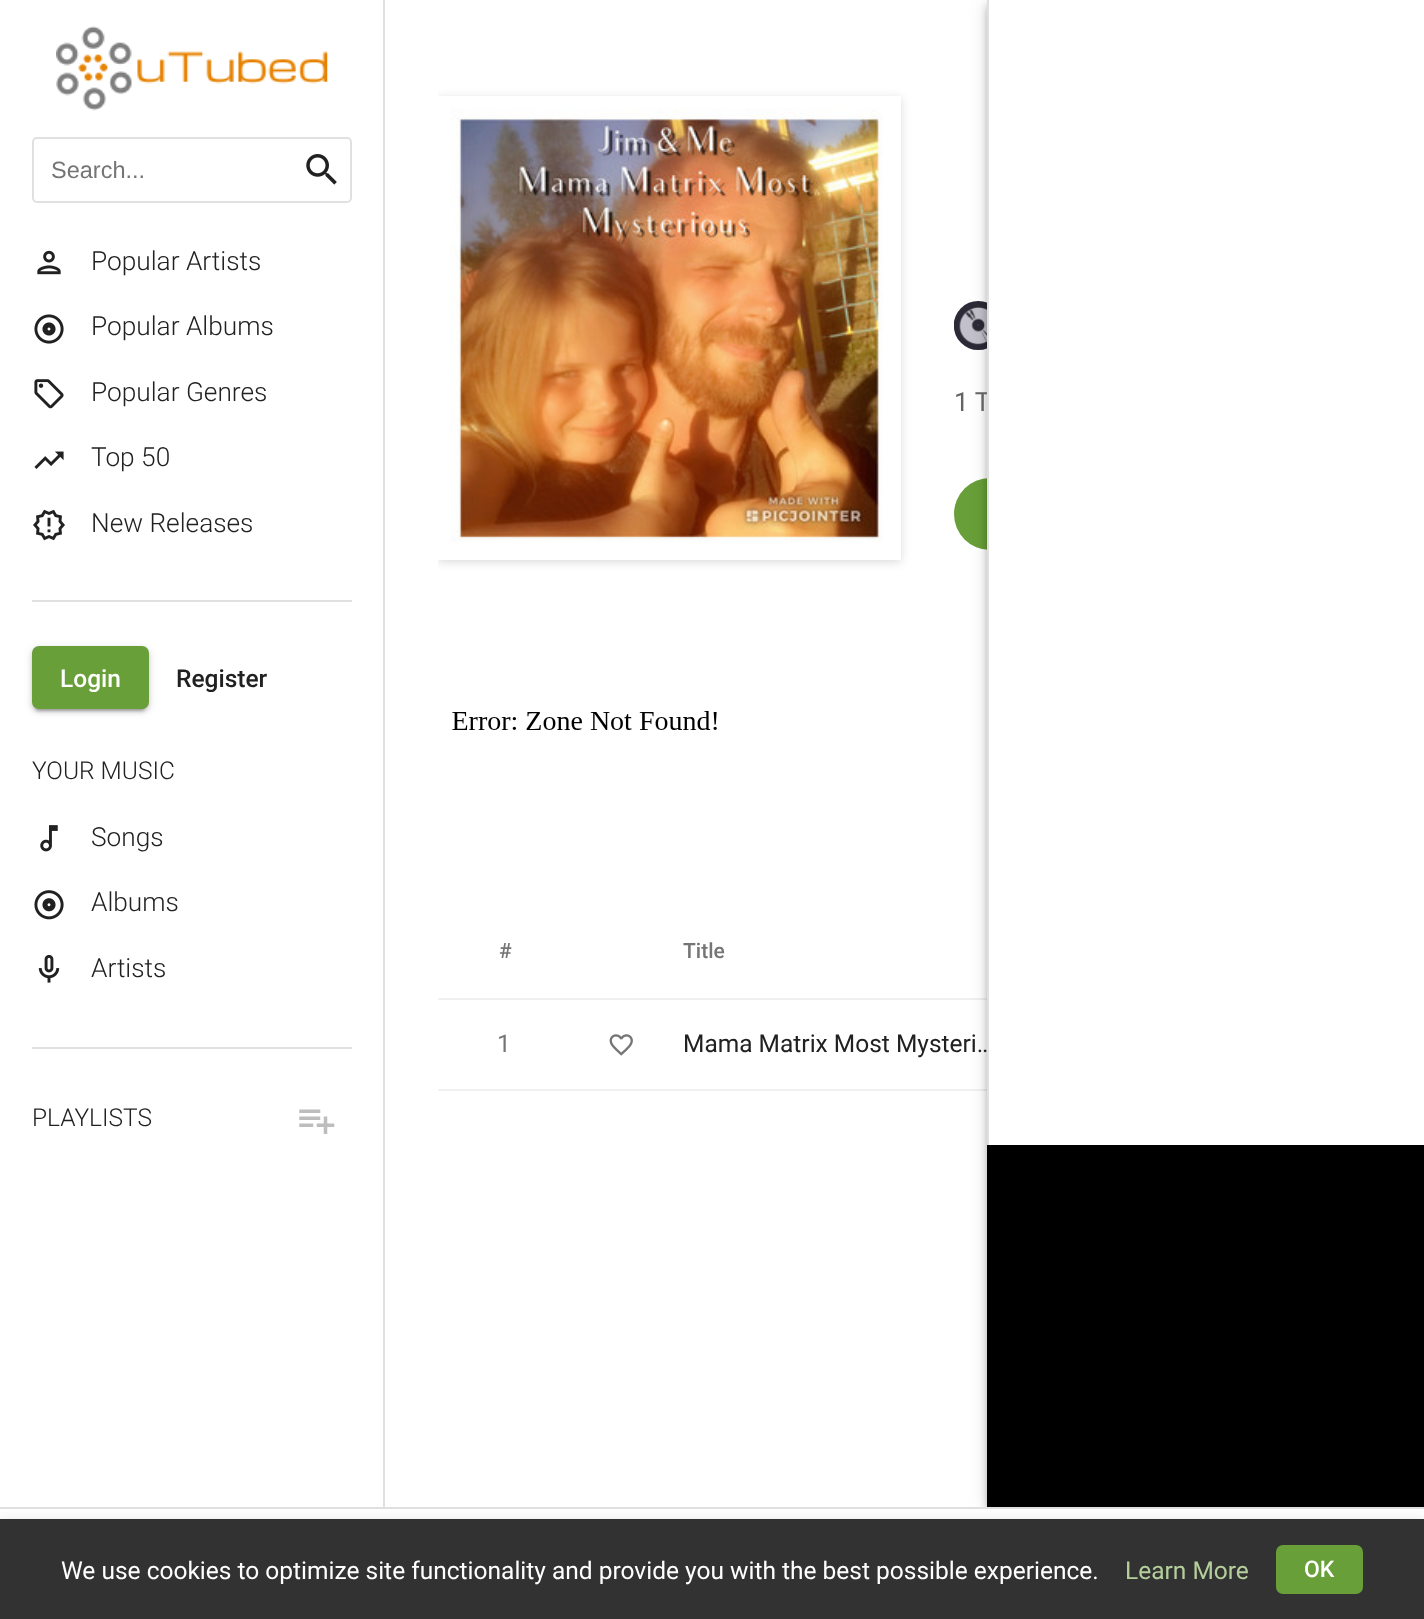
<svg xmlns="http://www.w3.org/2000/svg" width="1424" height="1619">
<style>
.a{font:23.5px Liberation Sans;fill:#757575}
.b{font:300 26.25px Roboto;fill:#212121}
.c{font:500 24.5px Roboto;fill:#fff}
.d{font:500 24.5px Roboto;fill:#212121}
.e{font:300 24.5px Roboto;fill:#212121}
.f{font:26.25px Roboto;fill:#646464}
.g{font:500 21px Roboto;fill:#757575}
.h{font:24.5px Roboto;fill:#757575}
.i{font:24.5px Roboto;fill:#212121}
.j{font:24.5px Roboto;fill:#fff}
.k{font:24.5px Roboto;fill:#b4cf9c}
.l{font:500 23px Roboto;fill:#fff}
</style>
<defs>
<clipPath id="clip1"><path d="M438 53h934v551H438z"/></clipPath>
<clipPath id="clip2"><path d="M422 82h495v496h-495zm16 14h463v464h-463z" clip-rule="evenodd"/></clipPath>
<clipPath id="clip3"><path d="M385 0h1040v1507H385z"/></clipPath>
</defs>
<rect width="100%" height="100%" fill="#fff"/>
<path fill="#e0e0e0" d="M383 0h2v1507H383z"/>
<image href="1.png" x="56" y="26" width="272" height="85"/>
<rect fill="none" stroke="#e0e0e0" stroke-width="2" x="33" y="138" width="318" height="64" rx="4"/>
<image href="2.png" x="306" y="154" width="31" height="31"/>
<image href="3.png" x="37" y="250" width="24" height="25"/>
<image href="4.png" x="34" y="314" width="30" height="30"/>
<image href="5.png" x="34" y="379" width="30" height="30"/>
<image href="6.png" x="34" y="451" width="30" height="18"/>
<image href="7.png" x="33" y="509" width="32" height="32"/>
<path fill="#e0e0e0" d="M32 600h320v2H32z"/>
<rect fill="#0000001f" filter="blur(4.5px)" x="32" y="648" width="117" height="63" rx="7"/>
<rect fill="#00000024" filter="blur(2px)" x="32" y="649" width="117" height="63" rx="7"/>
<rect fill="#00000033" filter="blur(1px)" x="35" y="655" width="110" height="56" rx="4"/>
<rect fill="#689f38" x="32" y="646" width="117" height="63" rx="7"/>
<image href="8.png" x="40" y="825" width="18" height="27"/>
<image href="9.png" x="34" y="890" width="30" height="30"/>
<image href="10.png" x="38" y="954" width="22" height="29"/>
<path fill="#e0e0e0" d="M32 1047h320v2H32z"/>
<image href="11.png" x="299" y="1109" width="36" height="25"/>
<g clip-path="url(#clip1)">
<g clip-path="url(#clip2)">
<path fill="#19192229" filter="blur(5px)" d="M438 98h463v464H438z"/>
</g>
</g>
<rect fill="#fff" x="438" y="96" width="463" height="464" rx="7"/>
<image href="12.png" x="450" y="108" width="433" height="434"/>
<image href="13.png" x="954" y="301" width="33" height="49"/>
<rect fill="#689f38" x="954" y="478" width="210" height="72" rx="36"/>
<image href="14.png" x="452" y="711" width="265" height="19"/>
<path fill="#f0f0f0" d="M438 998h549v2H438z"/>
<path fill="#f0f0f0" d="M438 1089h549v2H438z"/>
<image href="15.png" x="609" y="1034" width="24" height="22"/>
<path fill="#e0e0e0" d="M0 1507h1424v2H0z"/>
<g clip-path="url(#clip3)">
<path fill="#0000001f" filter="blur(9px)" d="M987 2h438v1507H987z"/>
<path fill="#00000024" filter="blur(4.5px)" d="M987 7h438v1507H987z"/>
<path fill="#00000033" filter="blur(3.5px)" d="M989 5h434v1504H989z"/>
</g>
<path fill="#000" d="M987 1145h437v362H987z"/>
<path fill="#0000001f" filter="blur(7px)" d="M0 1521h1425v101H0z"/>
<path fill="#323232" d="M0 1519h1424v100H0z"/>
<rect fill="#689f38" x="1276" y="1545" width="87" height="49" rx="7"/>
<text class="a" x="51" y="178">Search...</text>
<text class="b" x="91" y="270">Popular Artists</text>
<text class="b" x="91" y="335">Popular Albums</text>
<text class="b" x="91" y="401">Popular Genres</text>
<text class="b" x="91" y="466">Top 50</text>
<text class="b" x="91" y="532">New Releases</text>
<text class="c" x="60" y="687">Login</text>
<text class="d" x="176" y="687">Register</text>
<text class="e" x="32" y="779">YOUR MUSIC</text>
<text class="b" x="91" y="846">Songs</text>
<text class="b" x="91" y="911">Albums</text>
<text class="b" x="91" y="977">Artists</text>
<text class="e" x="32" y="1126">PLAYLISTS</text>
<text class="f" x="954" y="411">1 T</text>
<text class="g" x="499" y="958">#</text>
<text class="g" x="683" y="958">Title</text>
<text class="h" x="497" y="1052">1</text>
<text class="i" x="683" y="1052">Mama Matrix Most Mysteri…</text>
<path fill="#fff" d="M989 0h435v1145H989z"/>
<path fill="#e0e0e0" d="M987 0h2v1145H987z"/>
<text class="j" x="61" y="1579">We use cookies to optimize site functionality and provide you with the best possible experience.</text>
<text class="k" x="1125" y="1579">Learn More</text>
<text class="l" x="1304" y="1577">OK</text>
</svg>
